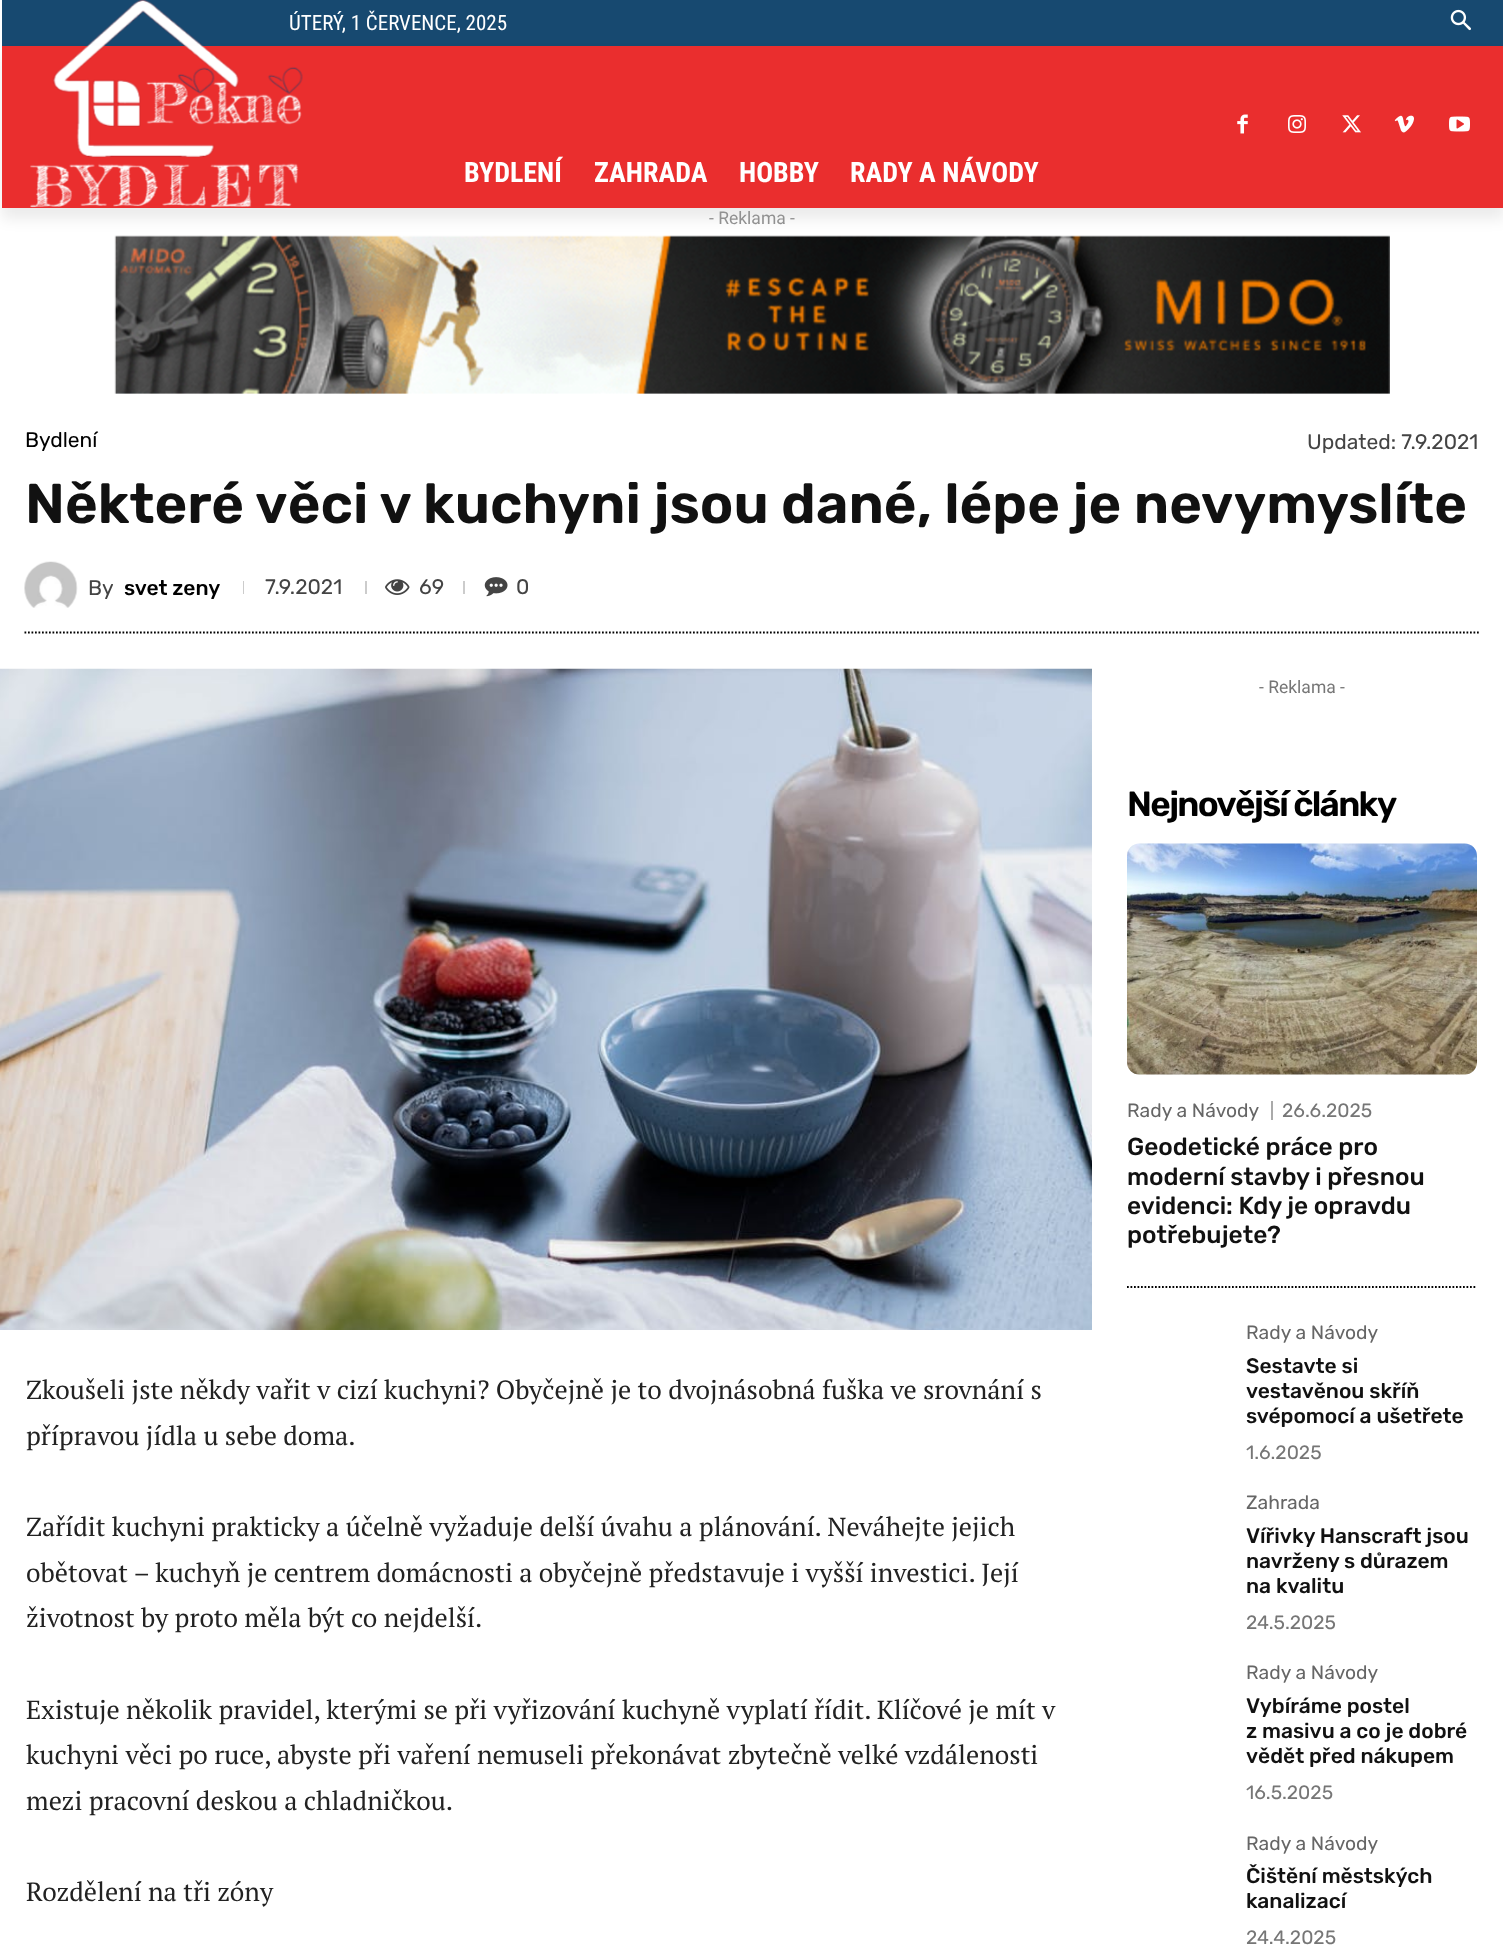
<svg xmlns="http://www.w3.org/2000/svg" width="1503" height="1960">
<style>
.a{font:21px Roboto Condensed;fill:#fff}
.b{font:bold 28px Roboto Condensed;fill:#fff}
.c{font:17.5px Roboto;fill:#919191}
.d{font:21px Rubik;fill:#000}
.e{font:21px Rubik;fill:#444}
.f{font:600 56px Rubik;fill:#111}
.g{font:500 21px Rubik;fill:#000}
.h{font:26.25px PT Serif;fill:#222}
.i{font:17.5px Roboto;fill:#767676}
.j{font:600 35px Rubik;letter-spacing:-1.75px;fill:#000}
.k{font:19.25px Rubik;fill:#666}
.l{font:19.25px Rubik;fill:#767676}
.m{font:500 24.5px Rubik;fill:#111}
.n{font:500 21px Rubik;fill:#111}
</style>
<defs>
<clipPath id="clip1"><path d="M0 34h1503v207h-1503zm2 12h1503v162h-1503z" clip-rule="evenodd"/></clipPath>
</defs>
<rect width="100%" height="100%" fill="#fff"/>
<path fill="#174970" d="M2 0h1501v46H2z"/>
<image href="1.png" x="1450" y="9" width="21" height="22"/>
<path fill="#ea2e2e" d="M2 46h1501v162H2z"/>
<image href="3.png" x="1237" y="114" width="11" height="20"/>
<image href="4.png" x="1288" y="115" width="18" height="18"/>
<image href="5.png" x="1342" y="115" width="19" height="18"/>
<image href="6.png" x="1394" y="115" width="20" height="18"/>
<image href="7.png" x="1449" y="116" width="21" height="16"/>
<image href="8.png" x="114" y="235" width="1276" height="159"/>
<image href="9.png" x="24" y="561" width="54" height="47"/>
<path fill="#ccc" d="M243 581h1v13H243z"/>
<path fill="#ccc" d="M365 581h2v13H365z"/>
<image href="10.png" x="385" y="579" width="25" height="16"/>
<path fill="#ccc" d="M463 581h2v13H463z"/>
<image href="11.png" x="484" y="577" width="24" height="20"/>
<path fill="none" stroke="#000" stroke-width="1.8" stroke-dasharray="1.75 1.75" d="M24.5 632.5h1454.5"/>
<image href="12.png" x="0" y="668" width="1092" height="662"/>
<path fill="none" stroke="#000" stroke-width="1.8" stroke-dasharray="1.75 1.75" d="M1127 1287h350"/>
<image href="13.png" x="1127" y="843" width="350" height="232"/>
<path fill="#aaa" d="M1271 1101h2v19H1271z"/>
<text class="a" x="289" y="30">ÚTERÝ, 1 ČERVENCE, 2025</text>
<image href="2.png" x="30" y="0" width="273" height="208"/>
<g clip-path="url(#clip1)">
<path fill="#00000014" filter="blur(7px)" d="M2 56h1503v163H2z"/>
</g>
<text class="b" x="464" y="182">BYDLENÍ</text>
<text class="b" x="594" y="182">ZAHRADA</text>
<text class="b" x="739" y="182">HOBBY</text>
<text class="b" x="850" y="182">RADY A NÁVODY</text>
<text class="c" x="709" y="224">- Reklama -</text>
<text class="d" x="25" y="447">Bydlení</text>
<text class="e" x="1307" y="449">Updated: 7.9.2021</text>
<text class="f" x="25" y="523">Některé věci v kuchyni jsou dané, lépe je nevymyslíte</text>
<text class="e" x="88" y="595">By</text>
<text class="g" x="124" y="595">svet zeny</text>
<text class="e" x="265" y="594">7.9.2021</text>
<text class="e" x="419" y="594">69</text>
<text class="e" x="516" y="594">0</text>
<text class="h" x="26" y="1399">Zkoušeli jste někdy vařit v cizí kuchyni? Obyčejně je to dvojnásobná fuška ve srovnání s</text>
<text class="h" x="26" y="1445">přípravou jídla u sebe doma.</text>
<text class="h" x="26" y="1536">Zařídit kuchyni prakticky a účelně vyžaduje delší úvahu a plánování. Neváhejte jejich</text>
<text class="h" x="26" y="1582">obětovat – kuchyň je centrem domácnosti a obyčejně představuje i vyšší investici. Její</text>
<text class="h" x="26" y="1627">životnost by proto měla být co nejdelší.</text>
<text class="h" x="26" y="1719">Existuje několik pravidel, kterými se při vyřizování kuchyně vyplatí řídit. Klíčové je mít v</text>
<text class="h" x="26" y="1764">kuchyni věci po ruce, abyste při vaření nemuseli překonávat zbytečně velké vzdálenosti</text>
<text class="h" x="26" y="1810">mezi pracovní deskou a chladničkou.</text>
<text class="h" x="26" y="1901">Rozdělení na tři zóny</text>
<text class="i" x="1259" y="693">- Reklama -</text>
<text class="j" x="1127" y="816">Nejnovější články</text>
<text class="k" x="1127" y="1117">Rady a Návody</text>
<text class="l" x="1282" y="1117">26.6.2025</text>
<text class="m" x="1127" y="1155">Geodetické práce pro</text>
<text class="m" x="1127" y="1185">moderní stavby i přesnou</text>
<text class="m" x="1127" y="1214">evidenci: Kdy je opravdu</text>
<text class="m" x="1127" y="1243">potřebujete?</text>
<text class="k" x="1246" y="1339">Rady a Návody</text>
<text class="n" x="1246" y="1373">Sestavte si</text>
<text class="n" x="1246" y="1398">vestavěnou skříň</text>
<text class="n" x="1246" y="1423">svépomocí a ušetřete</text>
<text class="l" x="1246" y="1459">1.6.2025</text>
<text class="k" x="1246" y="1509">Zahrada</text>
<text class="n" x="1246" y="1543">Vířivky Hanscraft jsou</text>
<text class="n" x="1246" y="1568">navrženy s důrazem</text>
<text class="n" x="1246" y="1593">na kvalitu</text>
<text class="l" x="1246" y="1629">24.5.2025</text>
<text class="k" x="1246" y="1679">Rady a Návody</text>
<text class="n" x="1246" y="1713">Vybíráme postel</text>
<text class="n" x="1246" y="1738">z masivu a co je dobré</text>
<text class="n" x="1246" y="1763">vědět před nákupem</text>
<text class="l" x="1246" y="1799">16.5.2025</text>
<text class="k" x="1246" y="1850">Rady a Návody</text>
<text class="n" x="1246" y="1883">Čištění městských</text>
<text class="n" x="1246" y="1908">kanalizací</text>
<text class="l" x="1246" y="1944">24.4.2025</text>
</svg>
